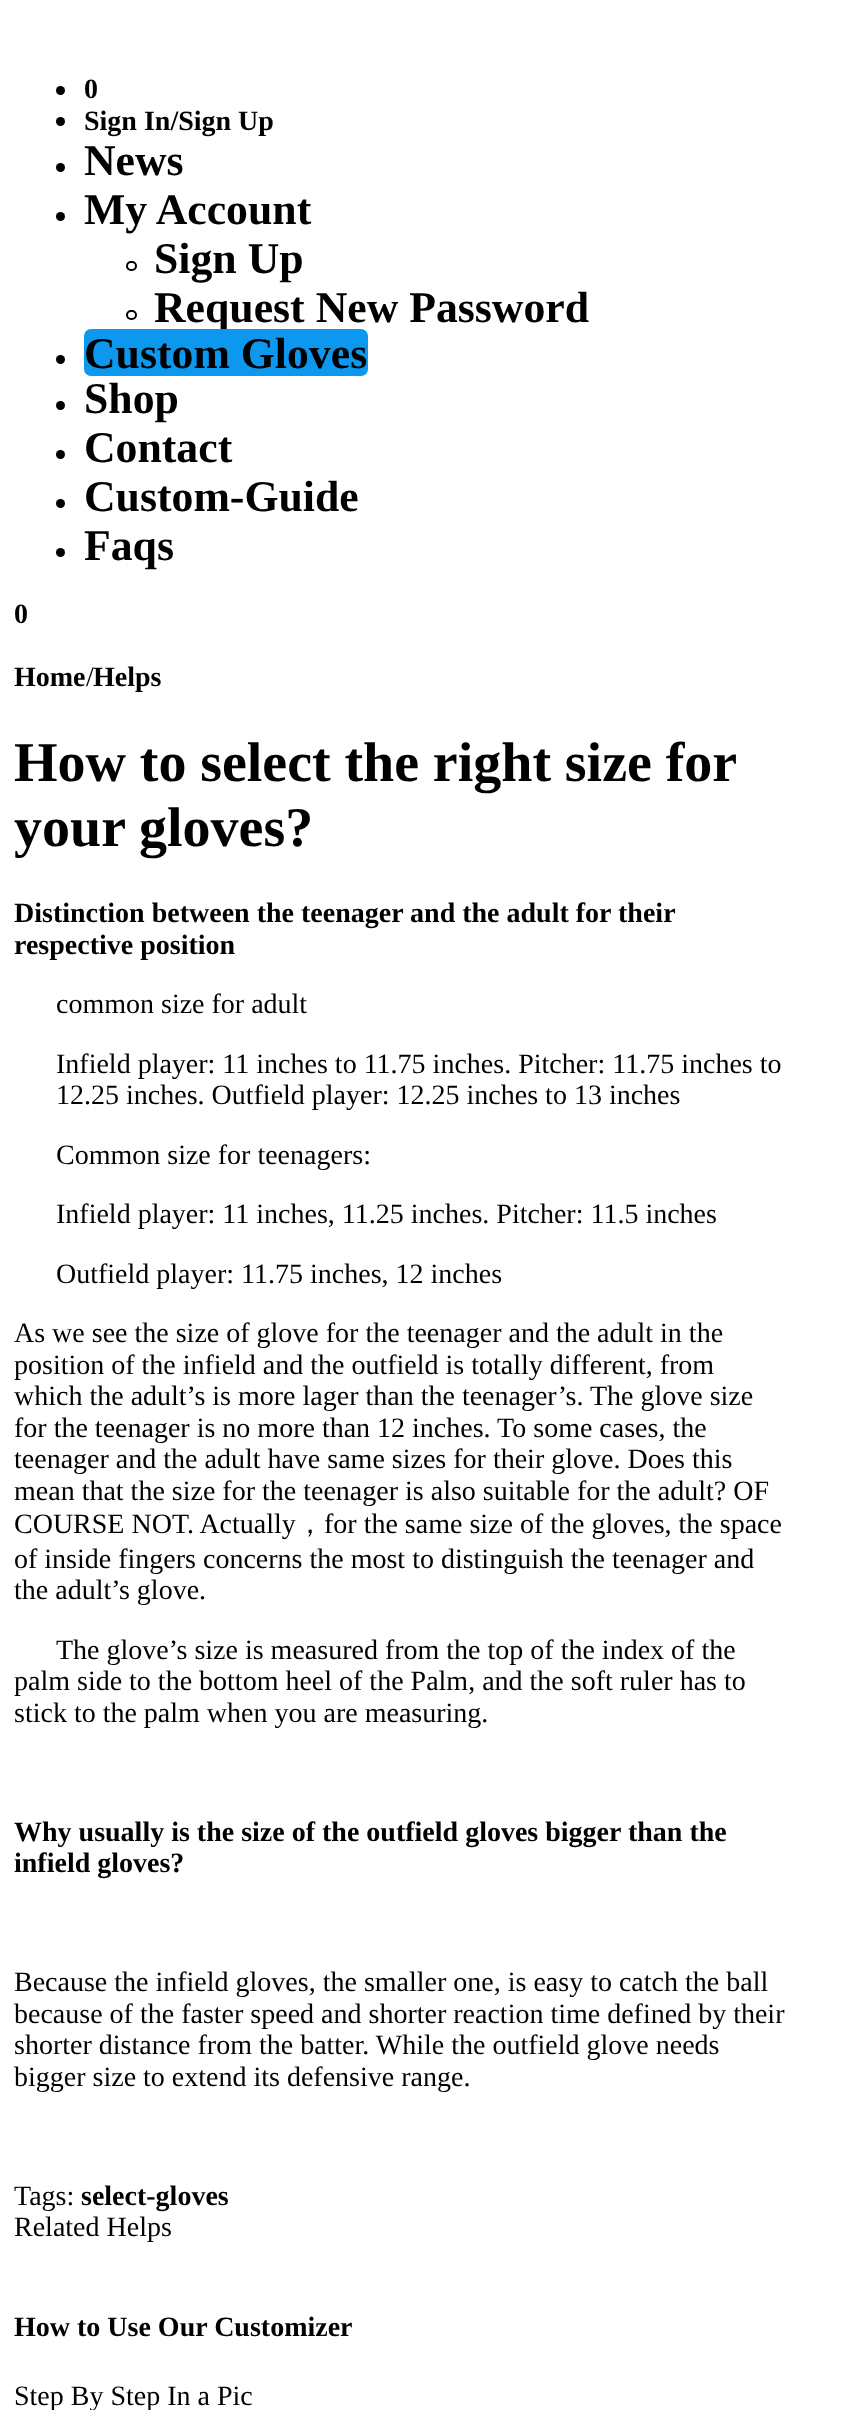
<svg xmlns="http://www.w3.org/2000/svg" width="843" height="2410">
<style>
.a{font:bold 28px Liberation Serif;fill:#000}
.b{font:bold 43.75px Liberation Serif;fill:#000}
.c{font:28px Liberation Serif;fill:#000}
.d{font:bold 56px Liberation Serif;fill:#000}
.e{font:500 28px WenQuanYi Zen Hei;fill:#000}
</style>
<rect width="100%" height="100%" fill="#fff"/>
<circle fill="#000" cx="60.5" cy="90.5" r="4.5"/>
<circle fill="#000" cx="60.5" cy="121.5" r="4.5"/>
<circle fill="#000" cx="60.5" cy="167.5" r="4.5"/>
<circle fill="#000" cx="60.5" cy="216.5" r="4.5"/>
<rect fill="none" stroke="#000" stroke-width="2" x="127" y="262" width="9" height="8" rx="4"/>
<rect fill="none" stroke="#000" stroke-width="2" x="127" y="311" width="9" height="8" rx="4"/>
<circle fill="#000" cx="60.5" cy="359.5" r="4.5"/>
<circle fill="#000" cx="60.5" cy="405.5" r="4.5"/>
<circle fill="#000" cx="60.5" cy="454.5" r="4.5"/>
<circle fill="#000" cx="60.5" cy="503.5" r="4.5"/>
<circle fill="#000" cx="60.5" cy="552.5" r="4.5"/>
<text class="a" x="84" y="98">0</text>
<text class="a" x="84" y="130">Sign In/Sign Up</text>
<text class="b" x="84" y="175">News</text>
<text class="b" x="84" y="224">My Account</text>
<text class="b" x="154" y="273">Sign Up</text>
<text class="b" x="154" y="322">Request New Password</text>
<rect fill="#0d98f0" x="84" y="329" width="284" height="47" rx="7"/>
<text class="b" x="84" y="368">Custom Gloves</text>
<text class="b" x="84" y="413">Shop</text>
<text class="b" x="84" y="462">Contact</text>
<text class="b" x="84" y="511">Custom-Guide</text>
<text class="b" x="84" y="560">Faqs</text>
<text class="a" x="14" y="623">0</text>
<text class="a" x="14" y="686">Home</text>
<text class="c" x="86" y="686">/</text>
<text class="a" x="93" y="686">Helps</text>
<text class="d" x="14" y="781" word-spacing="-0.25">How to select the right size for</text>
<text class="d" x="14" y="846">your gloves?</text>
<text class="a" x="14" y="922">Distinction between the teenager and the adult for their</text>
<text class="a" x="14" y="954">respective position</text>
<text class="c" x="56" y="1013">common size for adult</text>
<text class="c" x="56" y="1073">Infield player: 11 inches to 11.75 inches. Pitcher: 11.75 inches to</text>
<text class="c" x="56" y="1104">12.25 inches. Outfield player: 12.25 inches to 13 inches</text>
<text class="c" x="56" y="1164">Common size for teenagers:</text>
<text class="c" x="56" y="1223">Infield player: 11 inches, 11.25 inches. Pitcher: 11.5 inches</text>
<text class="c" x="56" y="1283">Outfield player: 11.75 inches, 12 inches</text>
<text class="c" x="14" y="1342">As we see the size of glove for the teenager and the adult in the</text>
<text class="c" x="14" y="1374">position of the infield and the outfield is totally different, from</text>
<text class="c" x="14" y="1405">which the adult’s is more lager than the teenager’s. The glove size</text>
<text class="c" x="14" y="1437">for the teenager is no more than 12 inches. To some cases, the</text>
<text class="c" x="14" y="1468">teenager and the adult have same sizes for their glove. Does this</text>
<text class="c" x="14" y="1500">mean that the size for the teenager is also suitable for the adult? OF</text>
<text class="c" x="14" y="1533">COURSE NOT. Actually</text>
<text class="e" x="296" y="1533">，</text>
<text class="c" x="324" y="1533">for the same size of the gloves, the space</text>
<text class="c" x="14" y="1568">of inside fingers concerns the most to distinguish the teenager and</text>
<text class="c" x="14" y="1599">the adult’s glove.</text>
<text class="c" x="56" y="1659">The glove’s size is measured from the top of the index of the</text>
<text class="c" x="14" y="1690">palm side to the bottom heel of the Palm, and the soft ruler has to</text>
<text class="c" x="14" y="1722">stick to the palm when you are measuring.</text>
<text class="a" x="14" y="1841">Why usually is the size of the outfield gloves bigger than the</text>
<text class="a" x="14" y="1872">infield gloves?</text>
<text class="c" x="14" y="1991">Because the infield gloves, the smaller one, is easy to catch the ball</text>
<text class="c" x="14" y="2023">because of the faster speed and shorter reaction time defined by their</text>
<text class="c" x="14" y="2054">shorter distance from the batter. While the outfield glove needs</text>
<text class="c" x="14" y="2086">bigger size to extend its defensive range.</text>
<text class="c" x="14" y="2205">Tags:</text>
<text class="a" x="81" y="2205">select-gloves</text>
<text class="c" x="14" y="2236">Related Helps</text>
<text class="a" x="14" y="2336">How to Use Our Customizer</text>
<text class="c" x="14" y="2405">Step By Step In a Pic</text>
</svg>
